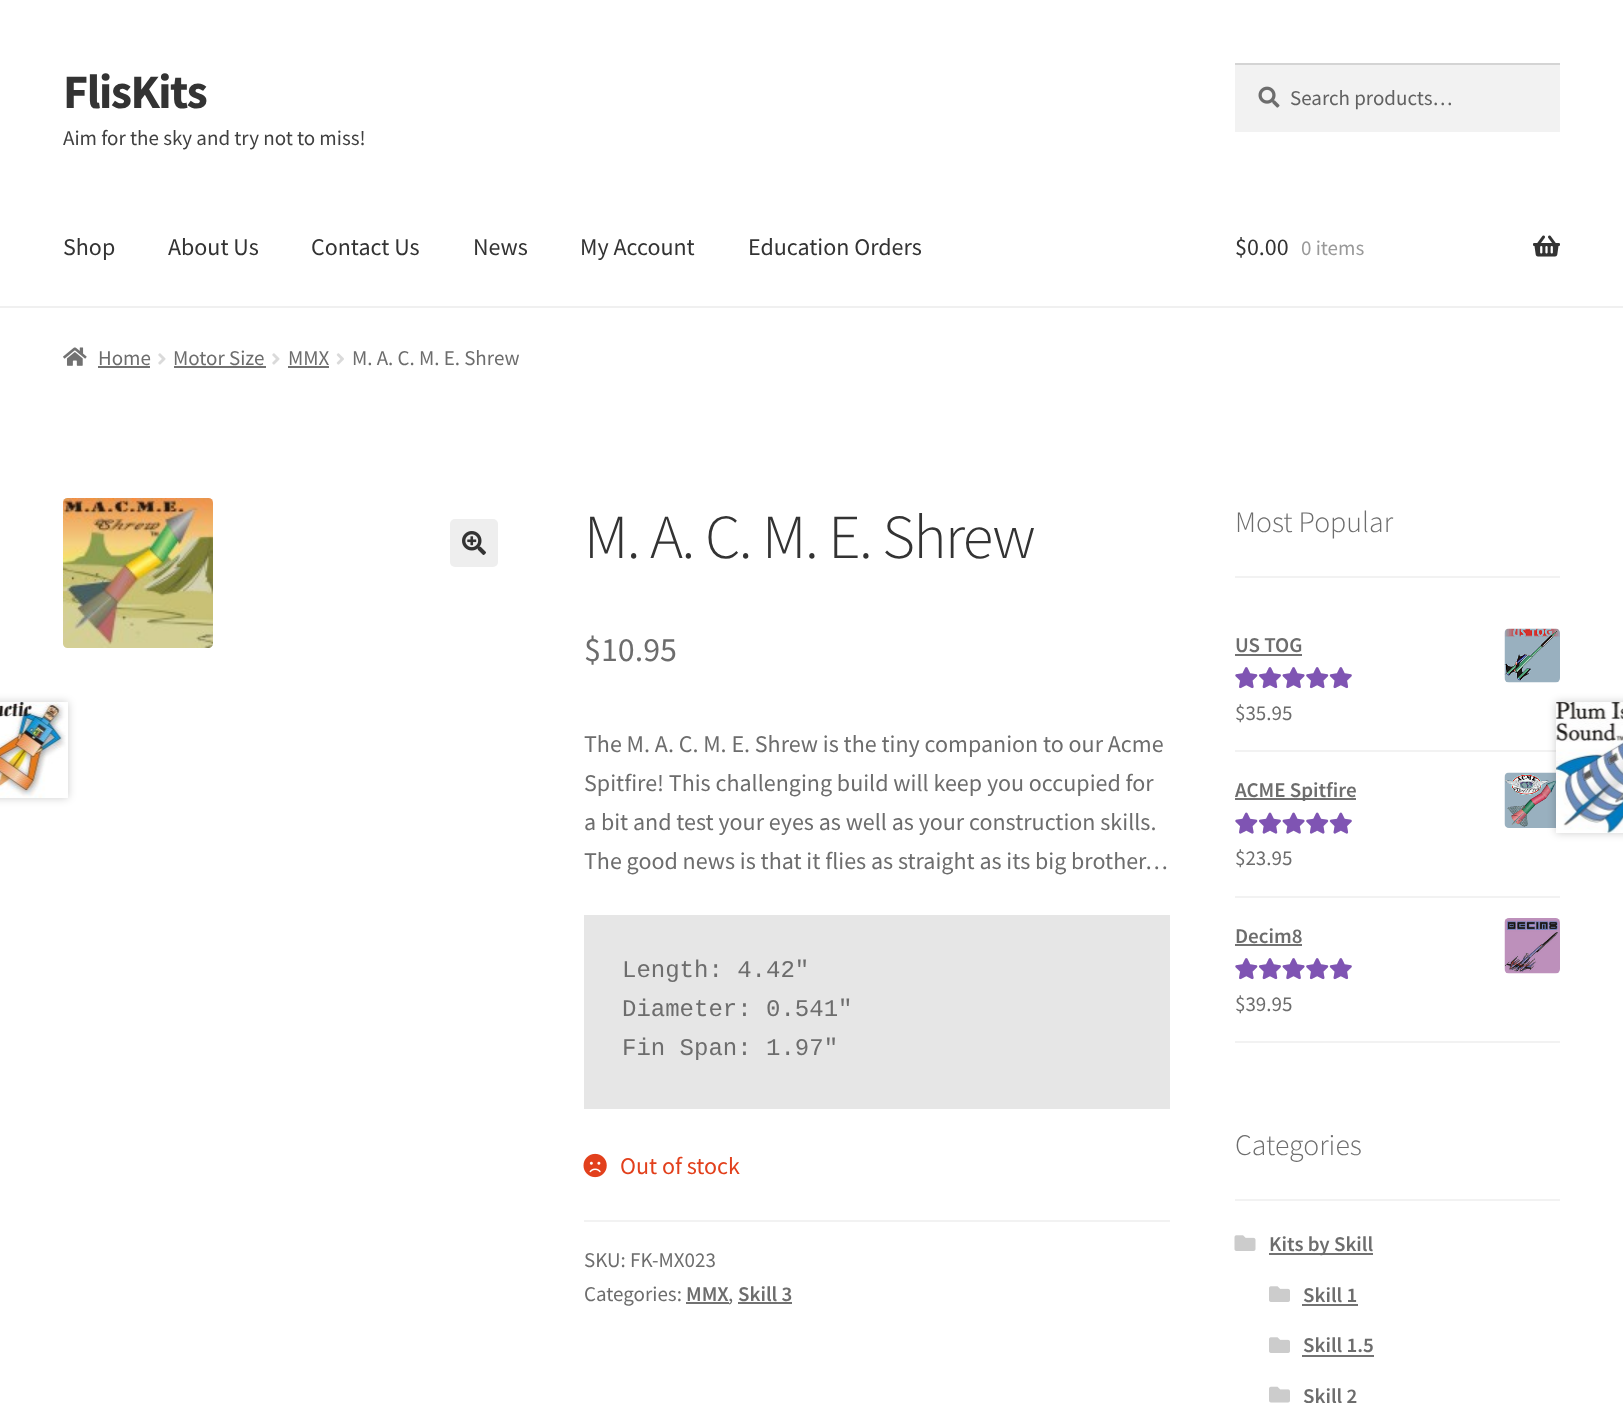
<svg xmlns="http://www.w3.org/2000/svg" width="1623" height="1403">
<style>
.a{font:bold 48px Source Sans Pro;letter-spacing:-1.5px;fill:#333}
.b{font:21px Source Sans Pro;fill:#404040}
.c{font:21px Source Sans Pro;fill:#616161}
.d{font:24px Source Sans Pro;fill:#333}
.e{font:21px Source Sans Pro;fill:#999}
.f{font:21px Source Sans Pro;fill:#6d6d6d}
.g{font:300 62.75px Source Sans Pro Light;letter-spacing:-1.5px;fill:#333}
.h{font:34px Source Sans Pro;fill:#6d6d6d}
.i{font:24px Source Sans Pro;fill:#6d6d6d}
.j{font:24px Liberation Mono;fill:#6d6d6d}
.k{font:24px Source Sans Pro;fill:#e2401c}
.l{font:600 21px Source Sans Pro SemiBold;fill:#6d6d6d}
.m{font:300 29.75px Source Sans Pro Light;fill:#6d6d6d}
</style>
<rect width="100%" height="100%" fill="#fff"/>
<path fill="#f0f0f0" d="M0 306h1623v2H0z"/>
<path fill="#f2f2f2" d="M1235 65h325v67H1235z"/>
<image href="1.png" x="1258" y="86" width="22" height="22"/>
<path fill="#d4d4d4" d="M1235 63h325v2H1235z"/>
<image href="2.png" x="1533" y="235" width="27" height="22"/>
<image href="3.png" x="63" y="347" width="24" height="19"/>
<path fill="#727272" d="M98 366h52v2H98z"/>
<image href="4.png" x="158" y="353" width="8" height="12"/>
<path fill="#727272" d="M174 366h92v2H174z"/>
<image href="4.png" x="272" y="353" width="8" height="12"/>
<path fill="#727272" d="M288 366h41v2H288z"/>
<image href="5.png" x="336" y="353" width="8" height="12"/>
<image href="6.png" x="63" y="498" width="150" height="150"/>
<rect fill="#eee" x="450" y="519" width="48" height="48" rx="5"/>
<image href="7.png" x="462" y="531" width="24" height="24"/>
<path fill="#e6e6e6" d="M584 915h586v194H584z"/>
<image href="8.png" x="583" y="1153" width="24" height="25"/>
<path fill="#f2f2f2" d="M584 1220h586v2H584z"/>
<path fill="#727272" d="M686 1302h43v2H686z"/>
<path fill="#727272" d="M738 1302h54v2H738z"/>
<path fill="#00000033" filter="blur(4px)" d="M-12 702h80v96H-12z"/>
<path fill="#fff" d="M66 702h2v96H66z"/>
<image href="9.png" x="0" y="702" width="66" height="96"/>
<path fill="#f2f2f2" d="M1235 750h325v2H1235z"/>
<image href="14.png" x="1504" y="772" width="52" height="56"/>
<path fill="#00000033" filter="blur(4px)" d="M1556 702h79v131H1556z"/>
<path fill="#fff" d="M1556 832h67v1H1556z"/>
<image href="10.png" x="1556" y="702" width="67" height="131"/>
<path fill="#f2f2f2" d="M1235 576h325v2H1235z"/>
<path fill="#727272" d="M1235 654h67v2H1235z"/>
<image href="11.png" x="1504" y="628" width="56" height="55"/>
<image href="12.png" x="1235" y="667" width="117" height="21"/>
<image href="13.png" x="1235" y="667" width="117" height="22"/>
<path fill="#f2f2f2" d="M1235 896h325v2H1235z"/>
<path fill="#727272" d="M1235 798h121v2H1235z"/>
<image href="15.png" x="1235" y="812" width="117" height="22"/>
<image href="16.png" x="1235" y="812" width="117" height="22"/>
<path fill="#f2f2f2" d="M1235 1041h325v2H1235z"/>
<path fill="#727272" d="M1235 944h67v2H1235z"/>
<image href="17.png" x="1504" y="918" width="56" height="56"/>
<image href="12.png" x="1235" y="958" width="117" height="21"/>
<image href="13.png" x="1235" y="958" width="117" height="22"/>
<path fill="#f2f2f2" d="M1235 1199h325v2H1235z"/>
<image href="18.png" x="1234" y="1235" width="22" height="16"/>
<path fill="#727272" d="M1269 1253h104v2H1269z"/>
<image href="19.png" x="1269" y="1286" width="21" height="16"/>
<path fill="#727272" d="M1302 1304h56v2H1302z"/>
<image href="19.png" x="1269" y="1337" width="21" height="16"/>
<path fill="#727272" d="M1302 1355h72v2H1302z"/>
<image href="20.png" x="1269" y="1386" width="21" height="17"/>
<text class="a" x="63" y="108">FlisKits</text>
<text class="b" x="63" y="145">Aim for the sky and try not to miss!</text>
<text class="c" x="1290" y="105">Search products…</text>
<text class="d" x="63" y="255">Shop</text>
<text class="d" x="168" y="255">About Us</text>
<text class="d" x="311" y="255">Contact Us</text>
<text class="d" x="473" y="255">News</text>
<text class="d" x="580" y="255">My Account</text>
<text class="d" x="748" y="255">Education Orders</text>
<text class="d" x="1235" y="255">$0.00</text>
<text class="e" x="1301" y="255">0 items</text>
<text class="f" x="98" y="365">Home</text>
<text class="f" x="173" y="365">Motor Size</text>
<text class="f" x="288" y="365">MMX</text>
<text class="f" x="352" y="365">M. A. C. M. E. Shrew</text>
<text class="g" x="584" y="558">M. A. C. M. E. Shrew</text>
<text class="h" x="584" y="661">$10.95</text>
<text class="i" x="584" y="752">The M. A. C. M. E. Shrew is the tiny companion to our Acme</text>
<text class="i" x="584" y="791">Spitfire! This challenging build will keep you occupied for</text>
<text class="i" x="584" y="830">a bit and test your eyes as well as your construction skills.</text>
<text class="i" x="584" y="869">The good news is that it flies as straight as its big brother…</text>
<text class="j" x="622" y="977">Length: 4.42"</text>
<text class="j" x="622" y="1016">Diameter: 0.541"</text>
<text class="j" x="622" y="1055">Fin Span: 1.97"</text>
<text class="k" x="620" y="1174">Out of stock</text>
<text class="f" x="584" y="1267">SKU: FK-MX023</text>
<text class="f" x="584" y="1301">Categories:</text>
<text class="l" x="686" y="1301">MMX</text>
<text class="f" x="728" y="1301">,</text>
<text class="l" x="738" y="1301">Skill 3</text>
<text class="m" x="1235" y="532">Most Popular</text>
<text class="l" x="1235" y="652">US TOG</text>
<text class="f" x="1235" y="720">$35.95</text>
<text class="l" x="1235" y="797">ACME Spitfire</text>
<text class="f" x="1235" y="865">$23.95</text>
<text class="l" x="1235" y="943">Decim8</text>
<text class="f" x="1235" y="1011">$39.95</text>
<text class="m" x="1235" y="1155">Categories</text>
<text class="l" x="1269" y="1251">Kits by Skill</text>
<text class="l" x="1303" y="1302">Skill 1</text>
<text class="l" x="1303" y="1352">Skill 1.5</text>
<text class="l" x="1303" y="1403">Skill 2</text>
</svg>
